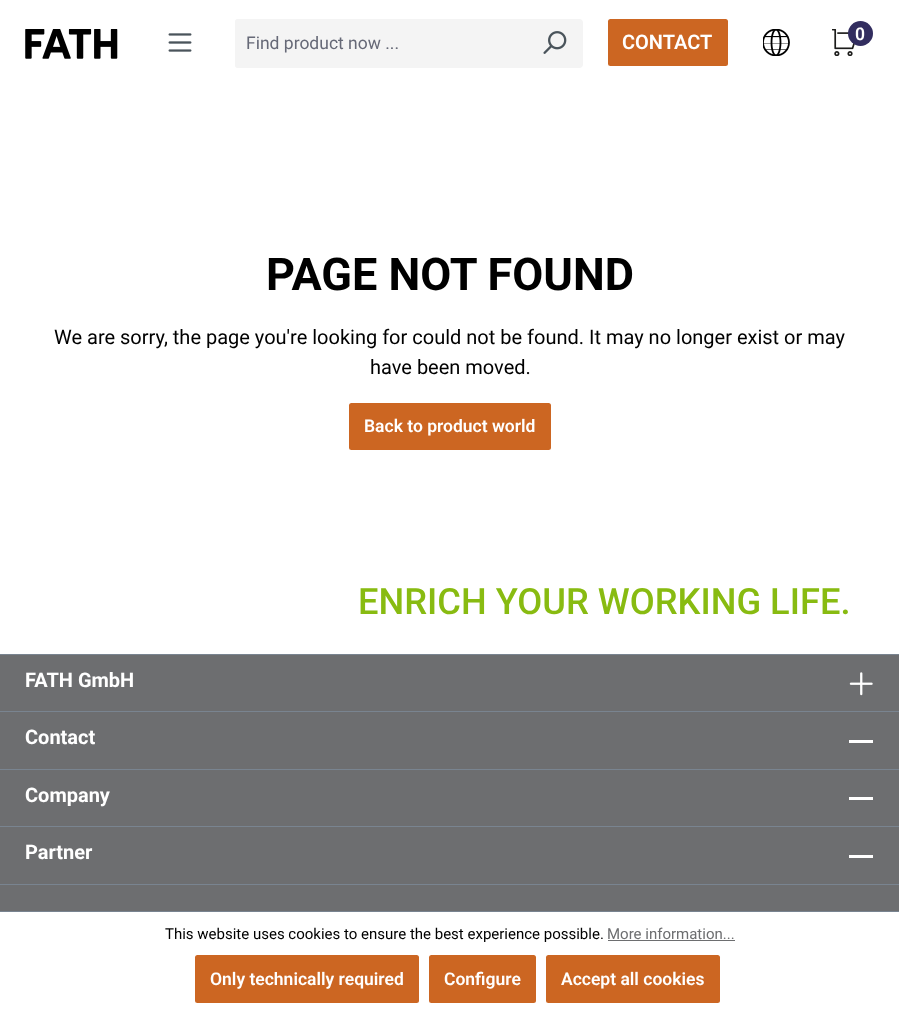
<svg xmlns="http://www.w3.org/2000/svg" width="899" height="1012">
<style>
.a{font:17.5px Roboto;fill:#666977}
.b{font:600 20px Roboto;fill:#fff}
.c{font:600 17.5px Roboto;fill:#fff}
.d{font:bold 45px Roboto;fill:#000}
.e{font:20px Roboto;fill:#000}
.f{font:500 36.25px Roboto;fill:#8b1}
.g{font:bold 20px Roboto;fill:#fff}
.h{font:15px Roboto;fill:#000}
.i{font:15px Roboto;fill:#6d6e70}
</style>
<rect width="100%" height="100%" fill="#fff"/>
<image href="1.png" x="25" y="29" width="93" height="30"/>
<image href="2.png" x="168" y="33" width="24" height="19"/>
<rect fill="#f4f4f4" x="235" y="19" width="348" height="49" rx="4"/>
<path fill="#f4f4f4" d="M237.5 19h288.5v49h-288.5c-1.5 0-2.5-1-2.5-2.5v-44c0-1.5 1-2.5 2.5-2.5z"/>
<image href="3.png" x="543" y="31" width="24" height="23"/>
<rect fill="#c62" x="608" y="19" width="120" height="47" rx="2.5"/>
<image href="4.png" x="763" y="29" width="27" height="27"/>
<image href="5.png" x="832" y="29" width="23" height="27"/>
<circle fill="#322d5f" cx="860.5" cy="33.5" r="12.5"/>
<rect fill="#c62" x="349" y="403" width="202" height="47" rx="2.5"/>
<path fill="#6d6e70" d="M0 655h899v256H0z"/>
<path fill="#798490" d="M0 654h899v1H0z"/>
<path fill="#798490" d="M0 711h899v1H0z"/>
<image href="6.png" x="849" y="672" width="24" height="24"/>
<path fill="#798490" d="M0 769h899v1H0z"/>
<path fill="#fff" d="M849 740h24v3H849z"/>
<path fill="#798490" d="M0 826h899v1H0z"/>
<path fill="#fff" d="M849 797h24v3H849z"/>
<path fill="#798490" d="M0 884h899v1H0z"/>
<path fill="#fff" d="M849 855h24v3H849z"/>
<path fill="#798490" d="M0 911h899v1H0z"/>
<path fill="#6d6e70" d="M608 940h127v1H608z"/>
<rect fill="#c62" x="195" y="955" width="224" height="48" rx="2.5"/>
<rect fill="#c62" x="429" y="955" width="107" height="48" rx="2.5"/>
<rect fill="#c62" x="546" y="955" width="174" height="48" rx="2.5"/>
<text class="a" x="246" y="49">Find product now ...</text>
<text class="b" x="622" y="49">CONTACT</text>
<text class="c" x="855" y="40">0</text>
<text class="d" x="266" y="290">PAGE NOT FOUND</text>
<text class="e" x="54" y="344">We are sorry, the page you're looking for could not be found. It may no longer exist or may</text>
<text class="e" x="370" y="374">have been moved.</text>
<text class="c" x="364" y="432">Back to product world</text>
<text class="f" x="358" y="614">ENRICH YOUR WORKING LIFE.</text>
<text class="g" x="25" y="687">FATH GmbH</text>
<text class="g" x="25" y="744">Contact</text>
<text class="g" x="25" y="802">Company</text>
<text class="g" x="25" y="859">Partner</text>
<text class="h" x="165" y="939">This website uses cookies to ensure the best experience possible.</text>
<text class="i" x="607" y="939">More information...</text>
<text class="c" x="210" y="985">Only technically required</text>
<text class="c" x="444" y="985">Configure</text>
<text class="c" x="561" y="985">Accept all cookies</text>
</svg>
